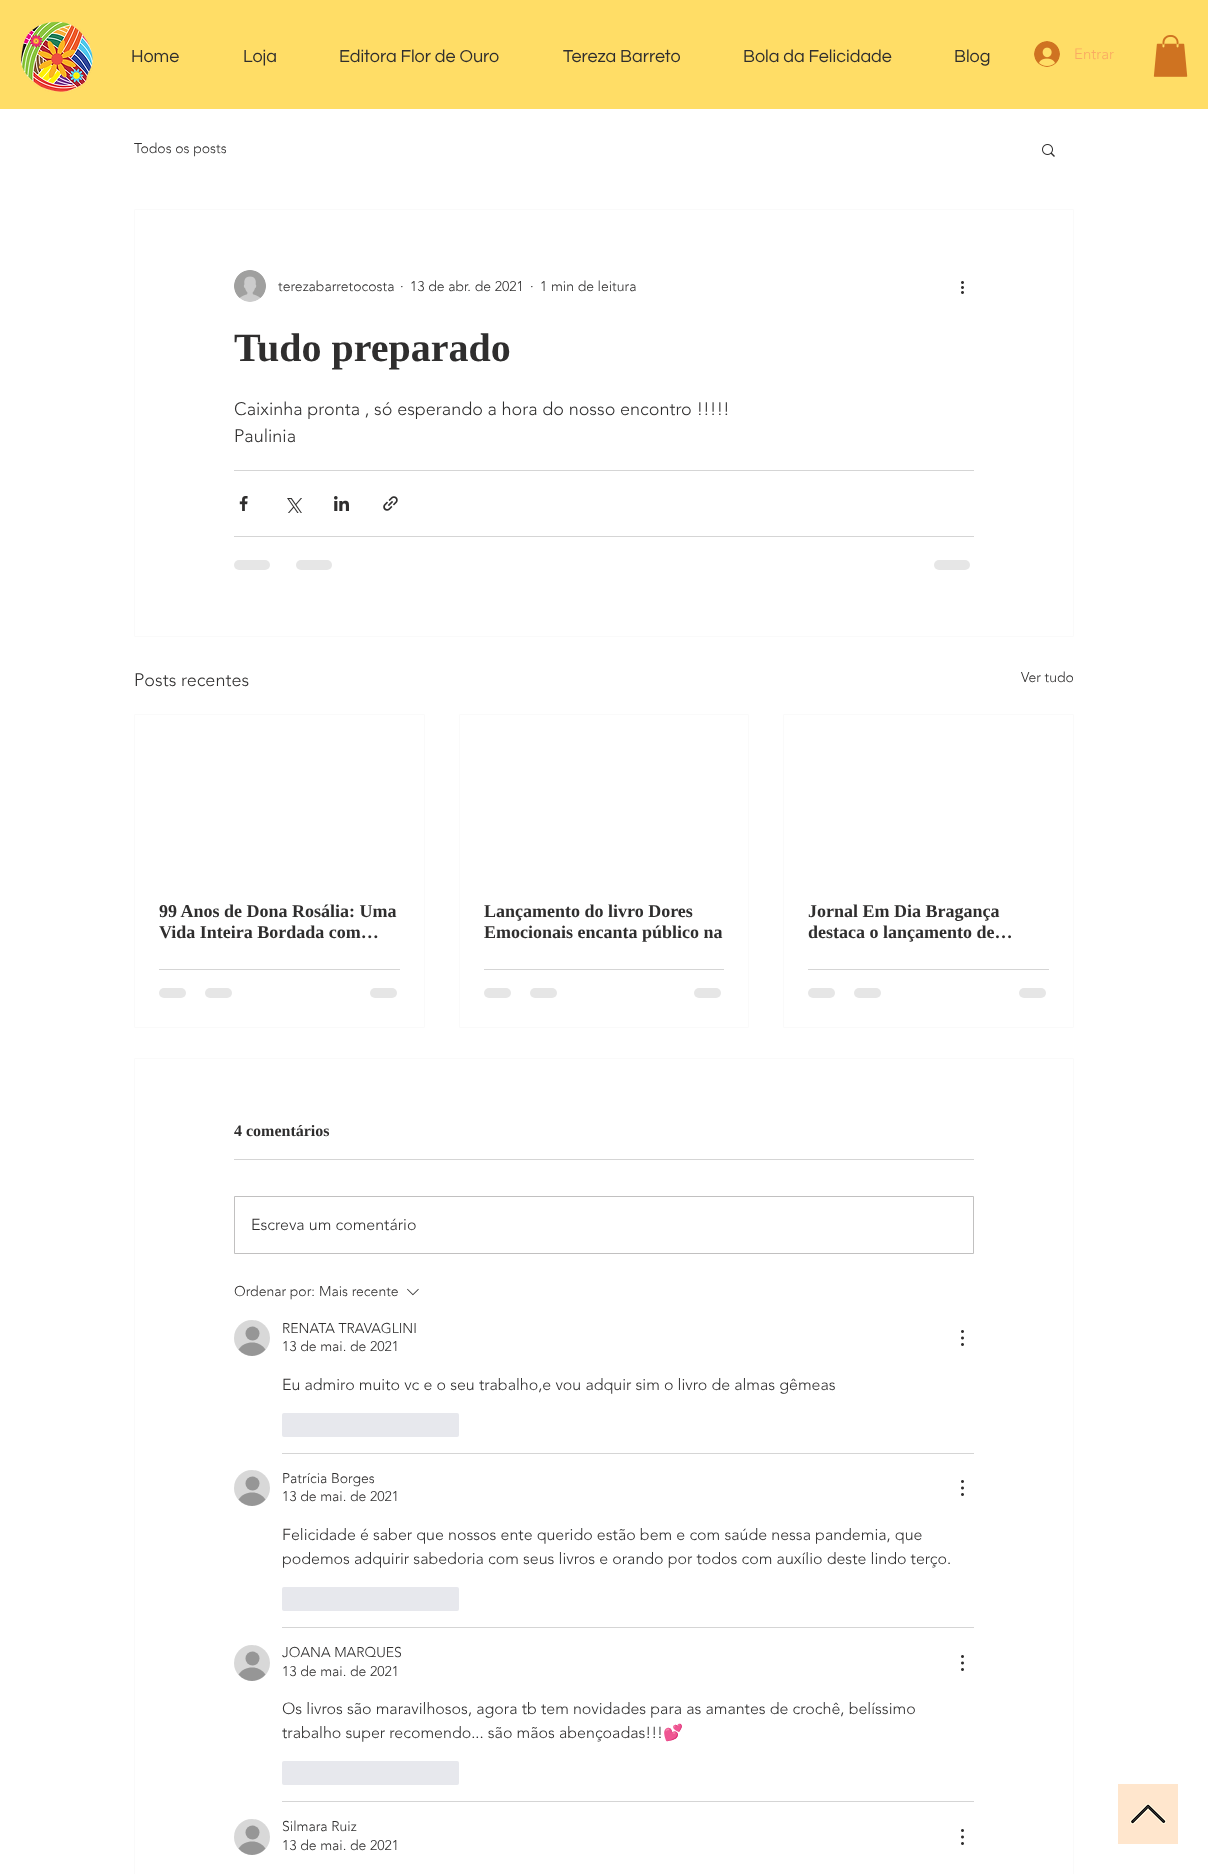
<svg xmlns="http://www.w3.org/2000/svg" width="1208" height="1874">
<style>
.a{font:18px Questrial;fill:#2f2e2e}
.b{font:300 15px 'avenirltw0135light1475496';fill:#faaa62}
.c{font:300 14px 'avenirltw0135light1475496';fill:#2f2e2e}
.d{font:bold 40px Liberation Serif;fill:#2f2e2e}
.e{font:300 18px 'avenirltw0135light1475496';fill:#2f2e2e}
.f{font:bold 18px Liberation Serif;fill:#2f2e2e}
.g{font:bold 16px Liberation Serif;fill:#2f2e2e}
.h{font:300 16px 'avenirltw0135light1475496';fill:#2f2e2e}
.i{font:16px Noto Color Emoji;fill:#2f2e2e}
</style>
<rect width="100%" height="100%" fill="#fff"/>
<path fill="#fd6" d="M0 0h1208v109H0z"/>
<image href="1.png" x="20" y="21" width="73" height="71"/>
<image href="2.png" x="1034" y="41" width="26" height="26"/>
<image href="3.png" x="1153" y="35" width="35" height="42"/>
<image href="4.png" x="1042" y="144" width="13" height="13"/>
<path fill="none" stroke="#fafafa" d="M134.5 209.5h939v427H134.5z"/>
<image href="5.png" x="234" y="270" width="32" height="32"/>
<image href="6.png" x="961" y="281" width="3" height="13"/>
<path fill="#d5d5d5" d="M234 470h740v1H234z"/>
<image href="7.png" x="239" y="496" width="9" height="15"/>
<image href="8.png" x="287" y="498" width="15" height="15"/>
<image href="9.png" x="334" y="496" width="15" height="15"/>
<image href="10.png" x="383" y="496" width="15" height="15"/>
<path fill="#d5d5d5" d="M234 536h740v1H234z"/>
<rect fill="#e6e6e6" x="234" y="560" width="36" height="10" rx="5"/>
<rect fill="#e6e6e6" x="296" y="560" width="36" height="10" rx="5"/>
<rect fill="#e6e6e6" x="934" y="560" width="36" height="10" rx="5"/>
<path fill="none" stroke="#fafafa" d="M134.5 714.5h290v313H134.5z"/>
<path fill="#d5d5d5" d="M159 969h241v1H159z"/>
<rect fill="#e6e6e6" x="159" y="988" width="27" height="10" rx="5"/>
<rect fill="#e6e6e6" x="205" y="988" width="27" height="10" rx="5"/>
<rect fill="#e6e6e6" x="370" y="988" width="27" height="10" rx="5"/>
<path fill="none" stroke="#fafafa" d="M459.5 714.5h289v313H459.5z"/>
<path fill="#d5d5d5" d="M484 969h240v1H484z"/>
<rect fill="#e6e6e6" x="484" y="988" width="27" height="10" rx="5"/>
<rect fill="#e6e6e6" x="530" y="988" width="27" height="10" rx="5"/>
<rect fill="#e6e6e6" x="694" y="988" width="27" height="10" rx="5"/>
<path fill="none" stroke="#fafafa" d="M783.5 714.5h290v313H783.5z"/>
<path fill="#d5d5d5" d="M808 969h241v1H808z"/>
<rect fill="#e6e6e6" x="808" y="988" width="27" height="10" rx="5"/>
<rect fill="#e6e6e6" x="854" y="988" width="27" height="10" rx="5"/>
<rect fill="#e6e6e6" x="1019" y="988" width="27" height="10" rx="5"/>
<path fill="none" stroke="#fafafa" d="M134.5 1058.5h939v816H134.5z"/>
<path fill="#d5d5d5" d="M234 1159h740v1H234z"/>
<path fill="none" stroke="#c1c0c0" d="M234.5 1196.5h739v57H234.5z"/>
<image href="11.png" x="407" y="1288" width="12" height="8"/>
<circle fill="#d8d8d8" cx="252" cy="1338" r="18"/>
<circle fill="#969696" cx="252.5" cy="1333.5" r="7"/>
<path fill="#969696" d="M265.5 1349.5c-7 8.5-20 8.5-27 0c6-9.5 21-9.5 27 0z"/>
<image href="12.png" x="961" y="1330" width="3" height="16"/>
<rect fill="#e7e8ed" x="282" y="1413" width="177" height="24" rx="2"/>
<path fill="#d5d5d5" d="M282 1453h692v1H282z"/>
<circle fill="#d8d8d8" cx="252" cy="1488" r="18"/>
<circle fill="#969696" cx="252.5" cy="1483.5" r="7"/>
<path fill="#969696" d="M265.5 1499.5c-7 8.5-20 8.5-27 0c6-9.5 21-9.5 27 0z"/>
<image href="12.png" x="961" y="1480" width="3" height="16"/>
<rect fill="#e7e8ed" x="282" y="1587" width="177" height="24" rx="2"/>
<path fill="#d5d5d5" d="M282 1627h692v1H282z"/>
<circle fill="#d8d8d8" cx="252" cy="1663" r="18"/>
<circle fill="#969696" cx="252.5" cy="1658.5" r="7"/>
<path fill="#969696" d="M265.5 1674.5c-7 8.5-20 8.5-27 0c6-9.5 21-9.5 27 0z"/>
<image href="12.png" x="961" y="1655" width="3" height="16"/>
<rect fill="#e7e8ed" x="282" y="1761" width="177" height="24" rx="2"/>
<path fill="#d5d5d5" d="M282 1801h692v1H282z"/>
<circle fill="#d8d8d8" cx="252" cy="1837" r="18"/>
<circle fill="#969696" cx="252.5" cy="1832.5" r="7"/>
<path fill="#969696" d="M265.5 1848.5c-7 8.5-20 8.5-27 0c6-9.5 21-9.5 27 0z"/>
<image href="12.png" x="961" y="1829" width="3" height="16"/>
<image href="13.png" x="1118" y="1784" width="60" height="60"/>
<text class="a" x="131" y="62">Home</text>
<text class="a" x="243" y="62">Loja</text>
<text class="a" x="339" y="62">Editora Flor de Ouro</text>
<text class="a" x="563" y="62">Tereza Barreto</text>
<text class="a" x="743" y="62">Bola da Felicidade</text>
<text class="a" x="954" y="62">Blog</text>
<text class="b" x="1074" y="59">Entrar</text>
<text class="c" x="134" y="153">Todos os posts</text>
<text class="c" x="278" y="291">terezabarretocosta</text>
<text class="c" x="400" y="291">·</text>
<text class="c" x="410" y="291">13 de abr. de 2021</text>
<text class="c" x="530" y="291">·</text>
<text class="c" x="540" y="291">1 min de leitura</text>
<text class="d" x="234" y="361">Tudo preparado</text>
<text class="e" x="234" y="415">Caixinha pronta , só esperando a hora do nosso encontro !!!!!</text>
<text class="e" x="234" y="442">Paulinia</text>
<text class="e" x="134" y="686">Posts recentes</text>
<text class="c" x="1021" y="682">Ver tudo</text>
<text class="f" x="159" y="917">99 Anos de Dona Rosália: Uma</text>
<text class="f" x="159" y="938">Vida Inteira Bordada com…</text>
<text class="f" x="484" y="917">Lançamento do livro Dores</text>
<text class="f" x="484" y="938">Emocionais encanta público na</text>
<text class="f" x="808" y="917">Jornal Em Dia Bragança</text>
<text class="f" x="808" y="938">destaca o lançamento de…</text>
<text class="g" x="234" y="1136">4 comentários</text>
<text class="h" x="251" y="1230">Escreva um comentário</text>
<text class="c" x="234" y="1296">Ordenar por:</text>
<text class="c" x="319" y="1296">Mais recente</text>
<text class="c" x="282" y="1333">RENATA TRAVAGLINI</text>
<text class="c" x="282" y="1351">13 de mai. de 2021</text>
<text class="h" x="282" y="1390">Eu admiro muito vc e o seu trabalho,e vou adquir sim o livro de almas gêmeas</text>
<text class="c" x="282" y="1483">Patrícia Borges</text>
<text class="c" x="282" y="1501">13 de mai. de 2021</text>
<text class="h" x="282" y="1540">Felicidade é saber que nossos ente querido estão bem e com saúde nessa pandemia, que</text>
<text class="h" x="282" y="1564">podemos adquirir sabedoria com seus livros e orando por todos com auxílio deste lindo terço.</text>
<text class="c" x="282" y="1657">JOANA MARQUES</text>
<text class="c" x="282" y="1676">13 de mai. de 2021</text>
<text class="h" x="282" y="1714">Os livros são maravilhosos, agora tb tem novidades para as amantes de crochê, belíssimo</text>
<text class="h" x="282" y="1738">trabalho super recomendo... são mãos abençoadas!!!</text>
<text class="i" x="663" y="1738">💕</text>
<text class="c" x="282" y="1831">Silmara Ruiz</text>
<text class="c" x="282" y="1850">13 de mai. de 2021</text>
</svg>
